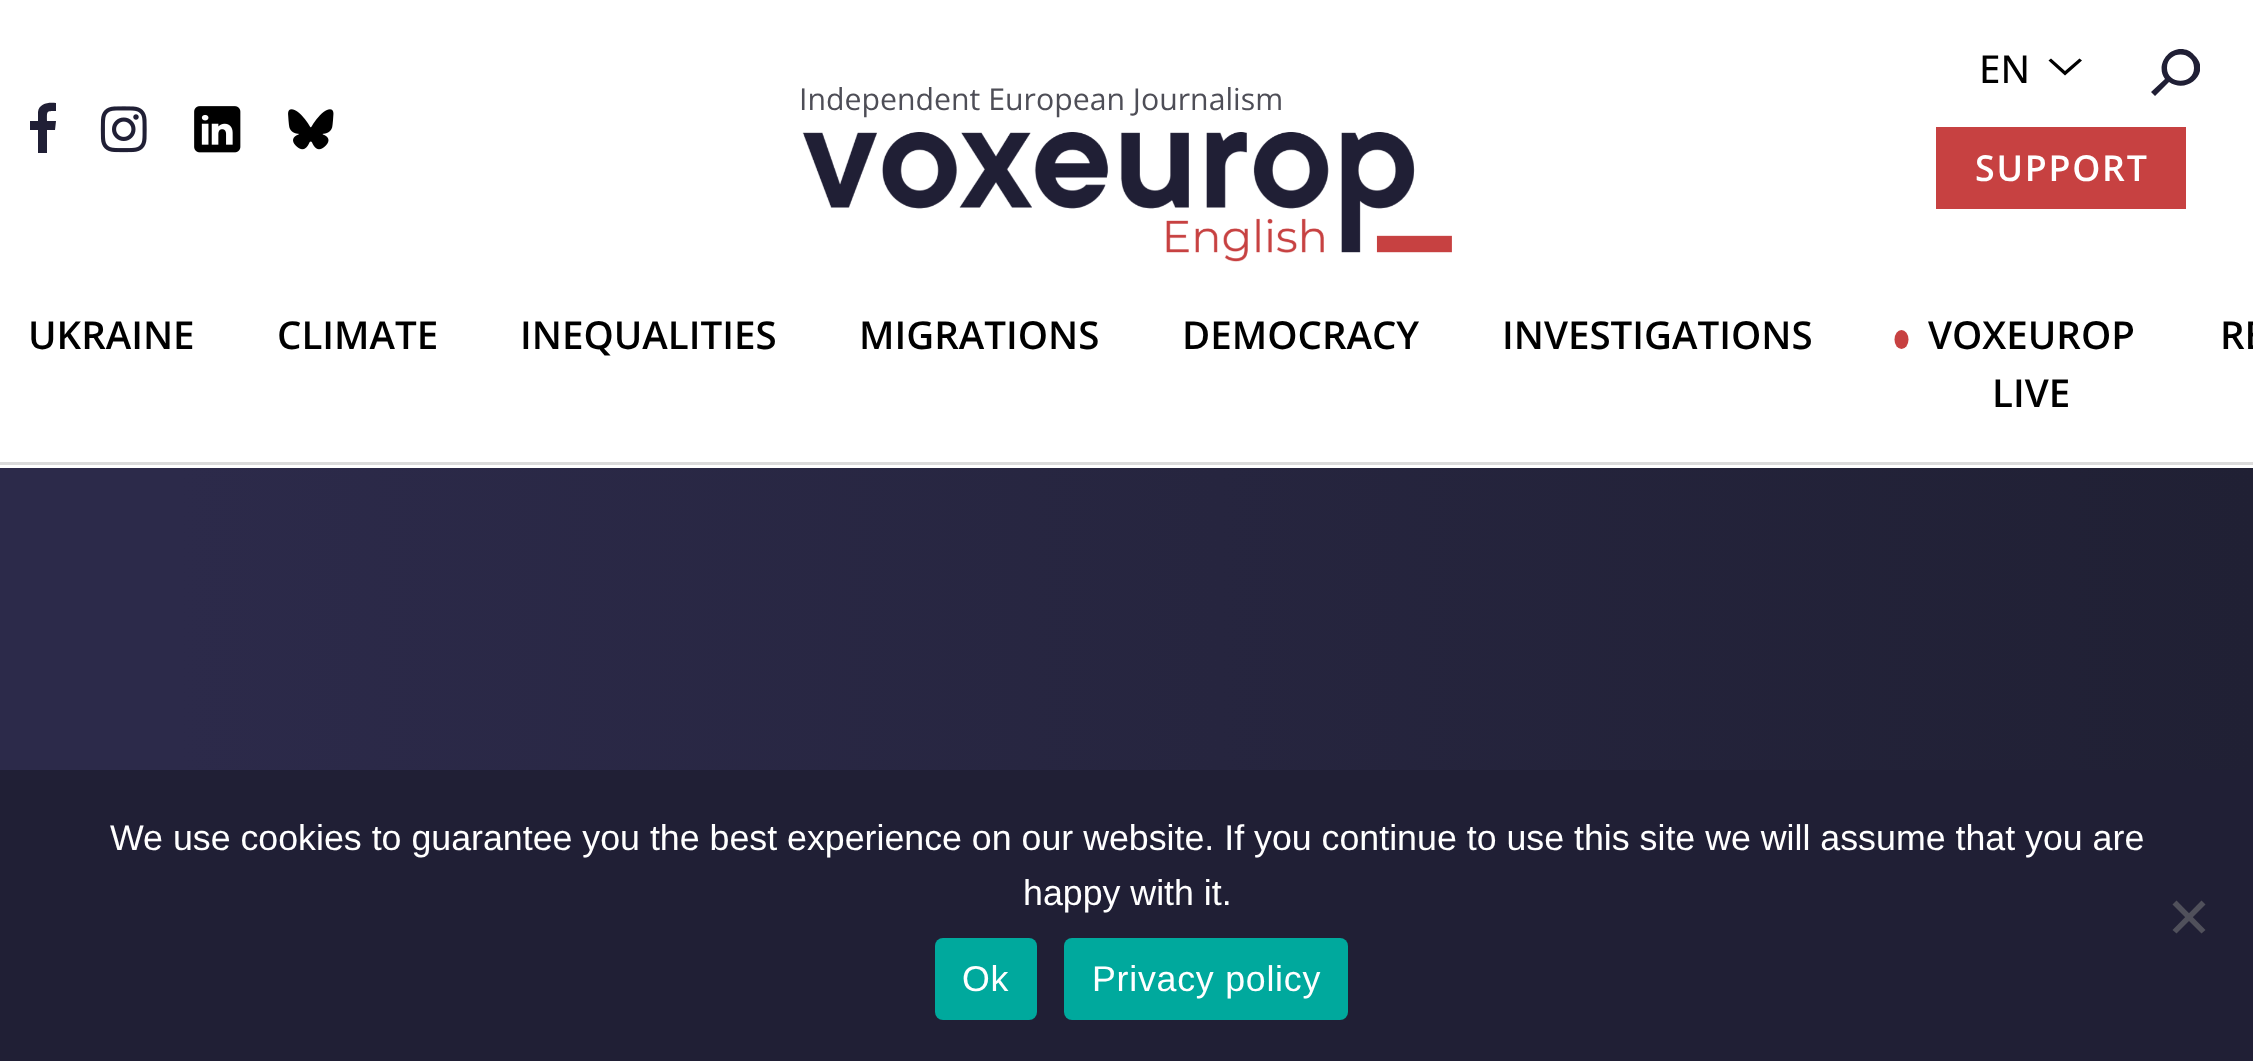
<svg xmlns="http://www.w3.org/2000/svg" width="2253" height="1061">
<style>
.a{font:500 38.5px Open Sans;fill:#000}
.b{font:30.25px Open Sans;fill:#4e4e57}
.c{font:600 35.75px Open Sans;letter-spacing:1.75px;fill:#fff}
.d{font:600 38.5px Open Sans;fill:#000}
.e{font:35.75px Liberation Sans;fill:#fff}
.f{font:35.75px Liberation Sans;letter-spacing:0.75px;fill:#fff}
</style>
<defs>
<clipPath id="clip1"><path d="M2151 47h49v49H2151z"/></clipPath>
<linearGradient id="g1" gradientUnits="userSpaceOnUse" x1="0" y1="971" x2="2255" y2="971"><stop offset="0.08" stop-color="#2c2a4a"/><stop offset="1" stop-color="#202034"/></linearGradient>
</defs>
<rect width="100%" height="100%" fill="#fff"/>
<path fill="#000" fill-rule="evenodd" d="M2048.5 60.5l2.5-2l14 12.5l14.5-12.5l2.5 2l-17 15z"/>
<g clip-path="url(#clip1)">
<path fill="#201f35" fill-rule="evenodd" d="M2181 49c-15 0-25 18-16 30l-14 13l4 4l14-14c19 13 43-11 25-27c-3-4-8-6-13-6zm-14 19c0-18 27-18 27 0c0 17-27 17-27 0z"/>
</g>
<path fill="#201f35" fill-rule="evenodd" d="M56 103v8c-10 0-9 0-9 10h9l-1 9h-8v23h-9v-23h-8v-9h8v-9c1-9 11-10 18-9z"/>
<image href="1.png" x="100" y="106" width="47" height="47"/>
<image href="2.png" x="194" y="106" width="47" height="47"/>
<image href="3.png" x="288" y="109" width="46" height="41"/>
<image href="4.png" x="802" y="132" width="650" height="130"/>
<path fill="#c74141" d="M1936 127h250v82H1936z"/>
<path fill="#dbdbdb" d="M0 462h2253v3H0z"/>
<ellipse fill="#c74141" cx="1901.5" cy="339.5" rx="7" ry="9.5"/>
<path fill="url(#g1)" d="M0 468h2253v302H0z"/>
<path fill="#201f35" d="M0 770h2253v291H0z"/>
<path fill="#50505b" d="M2201.5 900.5l4 4l-29 29l-4-3.5z"/>
<path fill="#50505b" d="M2172.5 904.5l4-4l29 29.5l-4 3.5z"/>
<rect fill="#00a99d" x="935" y="938" width="102" height="82" rx="8"/>
<rect fill="#00a99d" x="1064" y="938" width="284" height="82" rx="8"/>
<text class="a" x="1979" y="83">EN</text>
<text class="b" x="799" y="110">Independent European Journalism</text>
<text class="c" x="1975" y="181">SUPPORT</text>
<text class="d" x="28" y="349">UKRAINE</text>
<text class="d" x="277" y="349">CLIMATE</text>
<text class="d" x="520" y="349">INEQUALITIES</text>
<text class="d" x="859" y="349">MIGRATIONS</text>
<text class="d" x="1182" y="349">DEMOCRACY</text>
<text class="d" x="1502" y="349">INVESTIGATIONS</text>
<text class="d" x="1928" y="349">VOXEUROP</text>
<text class="d" x="1992" y="407">LIVE</text>
<text class="d" x="2220" y="349">RE</text>
<text class="e" x="110" y="850">We use cookies to guarantee you the best experience on our website. If you continue to use this site we will assume that you are</text>
<text class="e" x="1023" y="905">happy with it.</text>
<text class="f" x="962" y="991">Ok</text>
<text class="f" x="1092" y="991">Privacy policy</text>
</svg>
